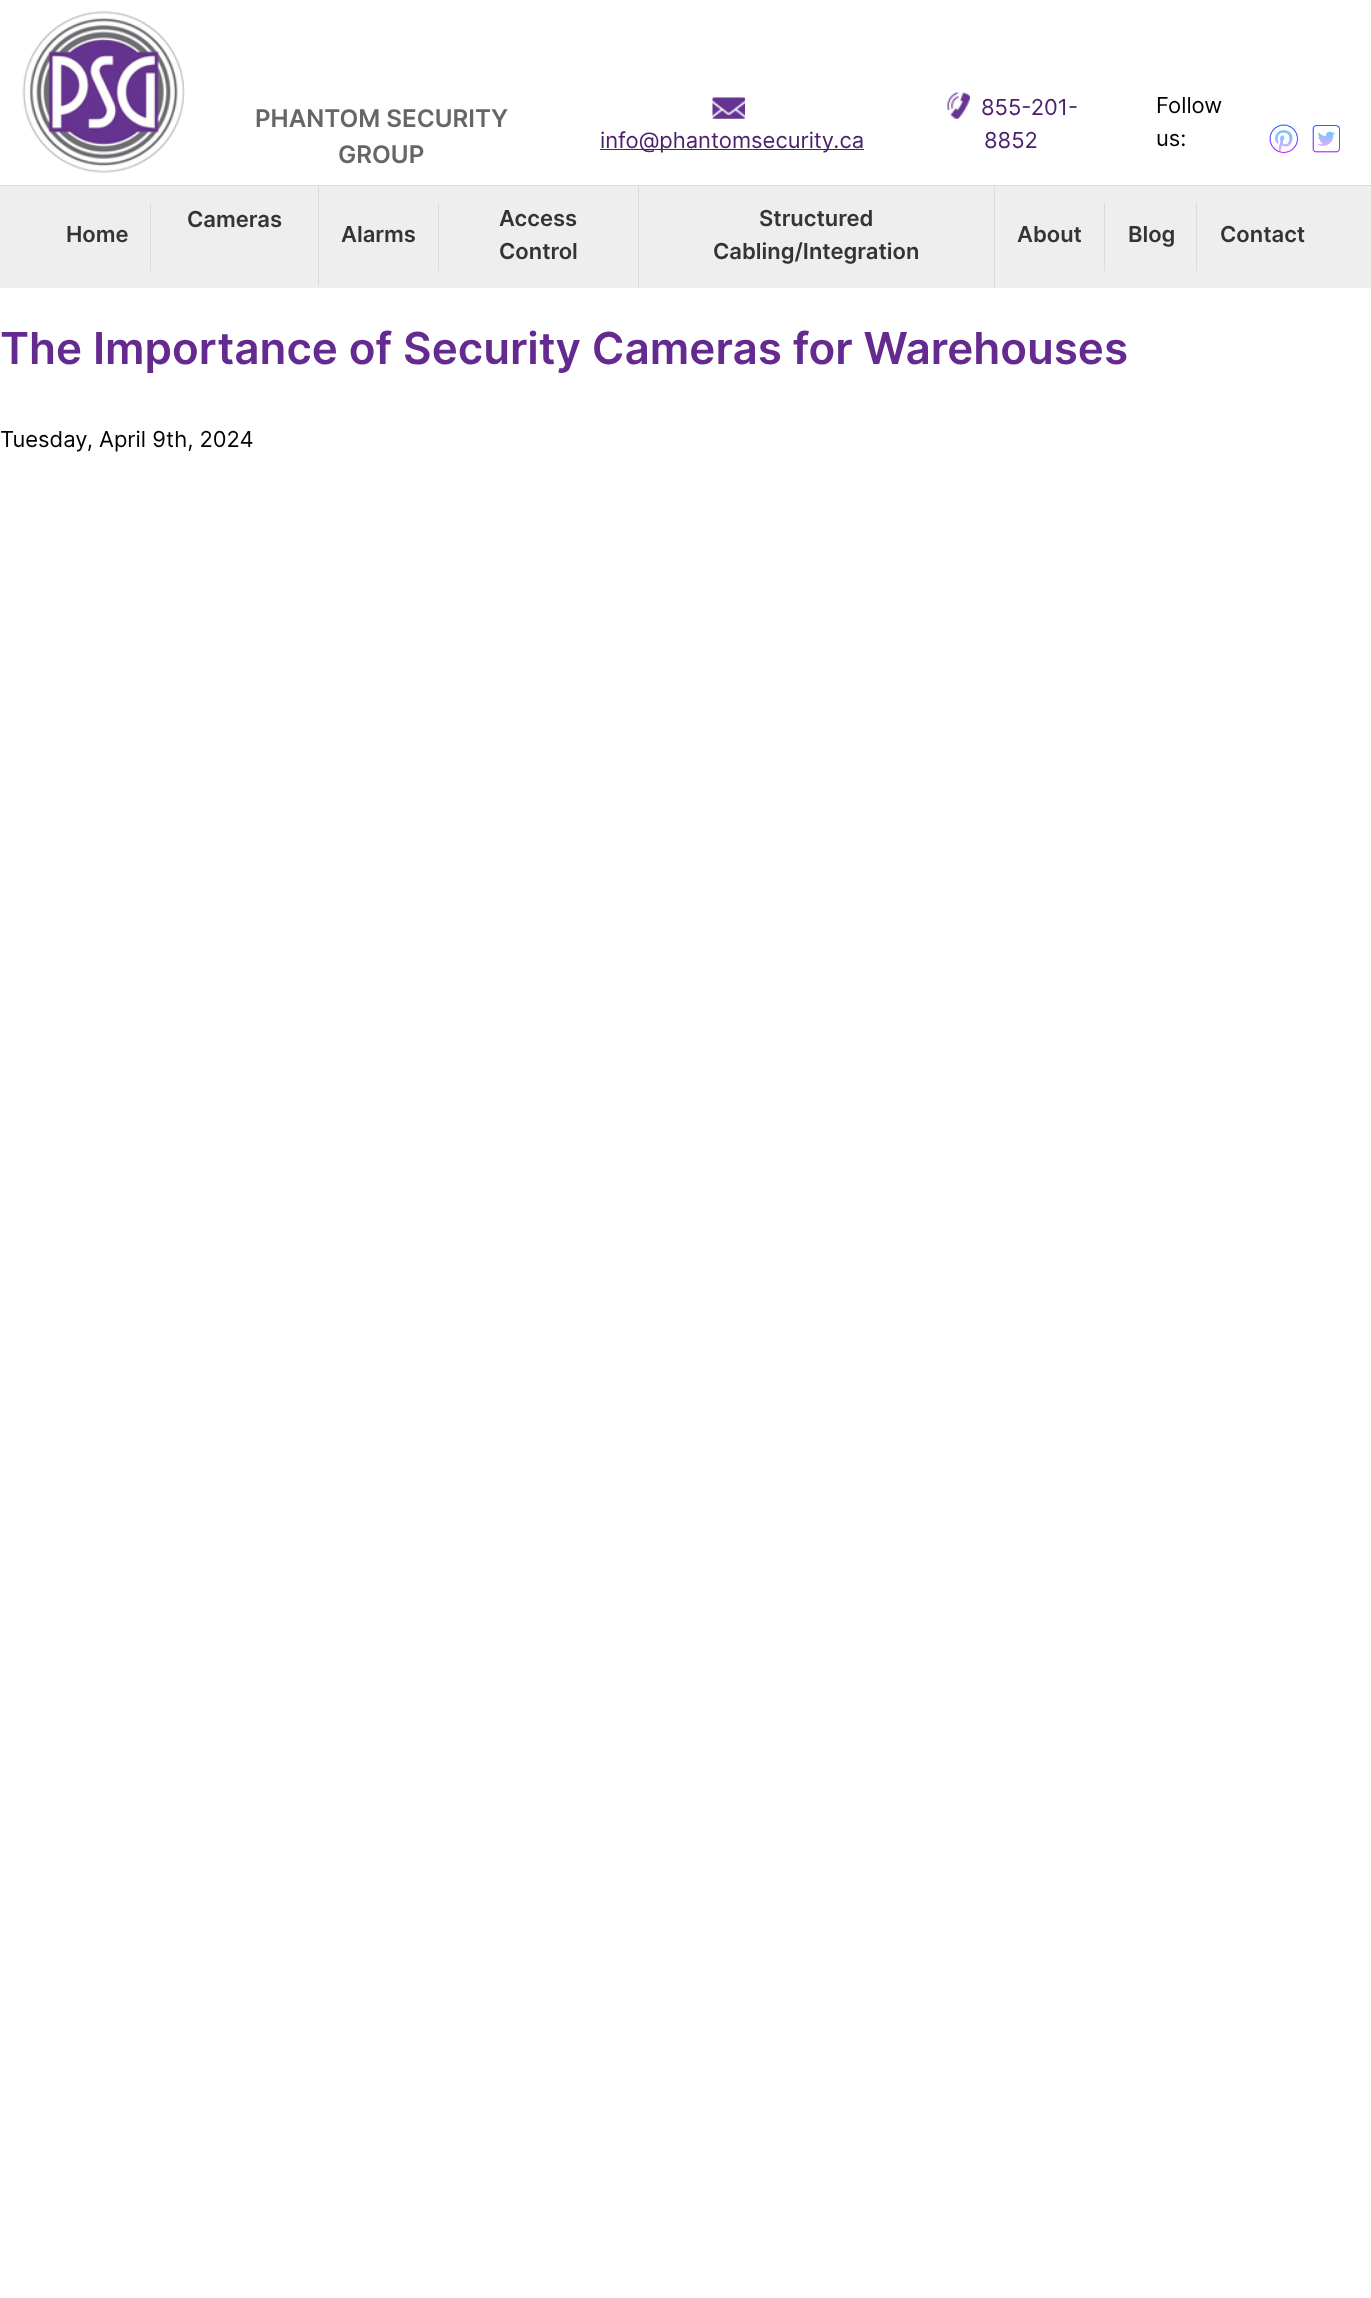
<svg xmlns="http://www.w3.org/2000/svg" width="1371" height="2298">
<style>
.a{font:600 24.25px Inter;fill:#666}
.b{font:22px Inter;fill:#4d206e}
.c{font:22px Inter;fill:#010101}
.d{font:600 22px Inter;fill:#343434}
.e{font:600 44px Inter;fill:#642a90}
</style>
<rect width="100%" height="100%" fill="#fff"/>
<image href="1.png" x="22" y="11" width="163" height="162"/>
<image href="2.png" x="712" y="97" width="33" height="22"/>
<path fill="#4d206e" d="M600 149h264v1H600z"/>
<image href="3.png" x="947" y="92" width="23" height="27"/>
<image href="4.png" x="1269" y="124" width="29" height="29"/>
<image href="5.png" x="1312" y="125" width="28" height="28"/>
<path fill="#eee" d="M0 186h1371v102H0z"/>
<path fill="#dbdbdb" d="M0 185h1371v1H0z"/>
<path fill="#dbdbdb" d="M150 203h1v68H150z"/>
<path fill="#dbdbdb" d="M318 186h1v100H318z"/>
<path fill="#dbdbdb" d="M438 203h1v68H438z"/>
<path fill="#dbdbdb" d="M638 186h1v102H638z"/>
<path fill="#dbdbdb" d="M994 186h1v102H994z"/>
<path fill="#dbdbdb" d="M1104 203h1v68H1104z"/>
<path fill="#dbdbdb" d="M1196 203h1v68H1196z"/>
<text class="a" x="255" y="127">PHANTOM SECURITY</text>
<text class="a" x="338" y="163">GROUP</text>
<text class="b" x="600" y="148">info@phantomsecurity.ca</text>
<text class="b" x="981" y="115">855-201-</text>
<text class="b" x="984" y="148">8852</text>
<text class="c" x="1156" y="113">Follow</text>
<text class="c" x="1156" y="146">us:</text>
<text class="d" x="66" y="242">Home</text>
<text class="d" x="187" y="227">Cameras</text>
<text class="d" x="341" y="242">Alarms</text>
<text class="d" x="499" y="226">Access</text>
<text class="d" x="499" y="259">Control</text>
<text class="d" x="759" y="226">Structured</text>
<text class="d" x="713" y="259">Cabling/Integration</text>
<text class="d" x="1017" y="242">About</text>
<text class="d" x="1128" y="242">Blog</text>
<text class="d" x="1220" y="242">Contact</text>
<text class="e" x="0" y="364">The Importance of Security Cameras for Warehouses</text>
<text class="c" x="0" y="447">Tuesday, April 9th, 2024</text>
</svg>
